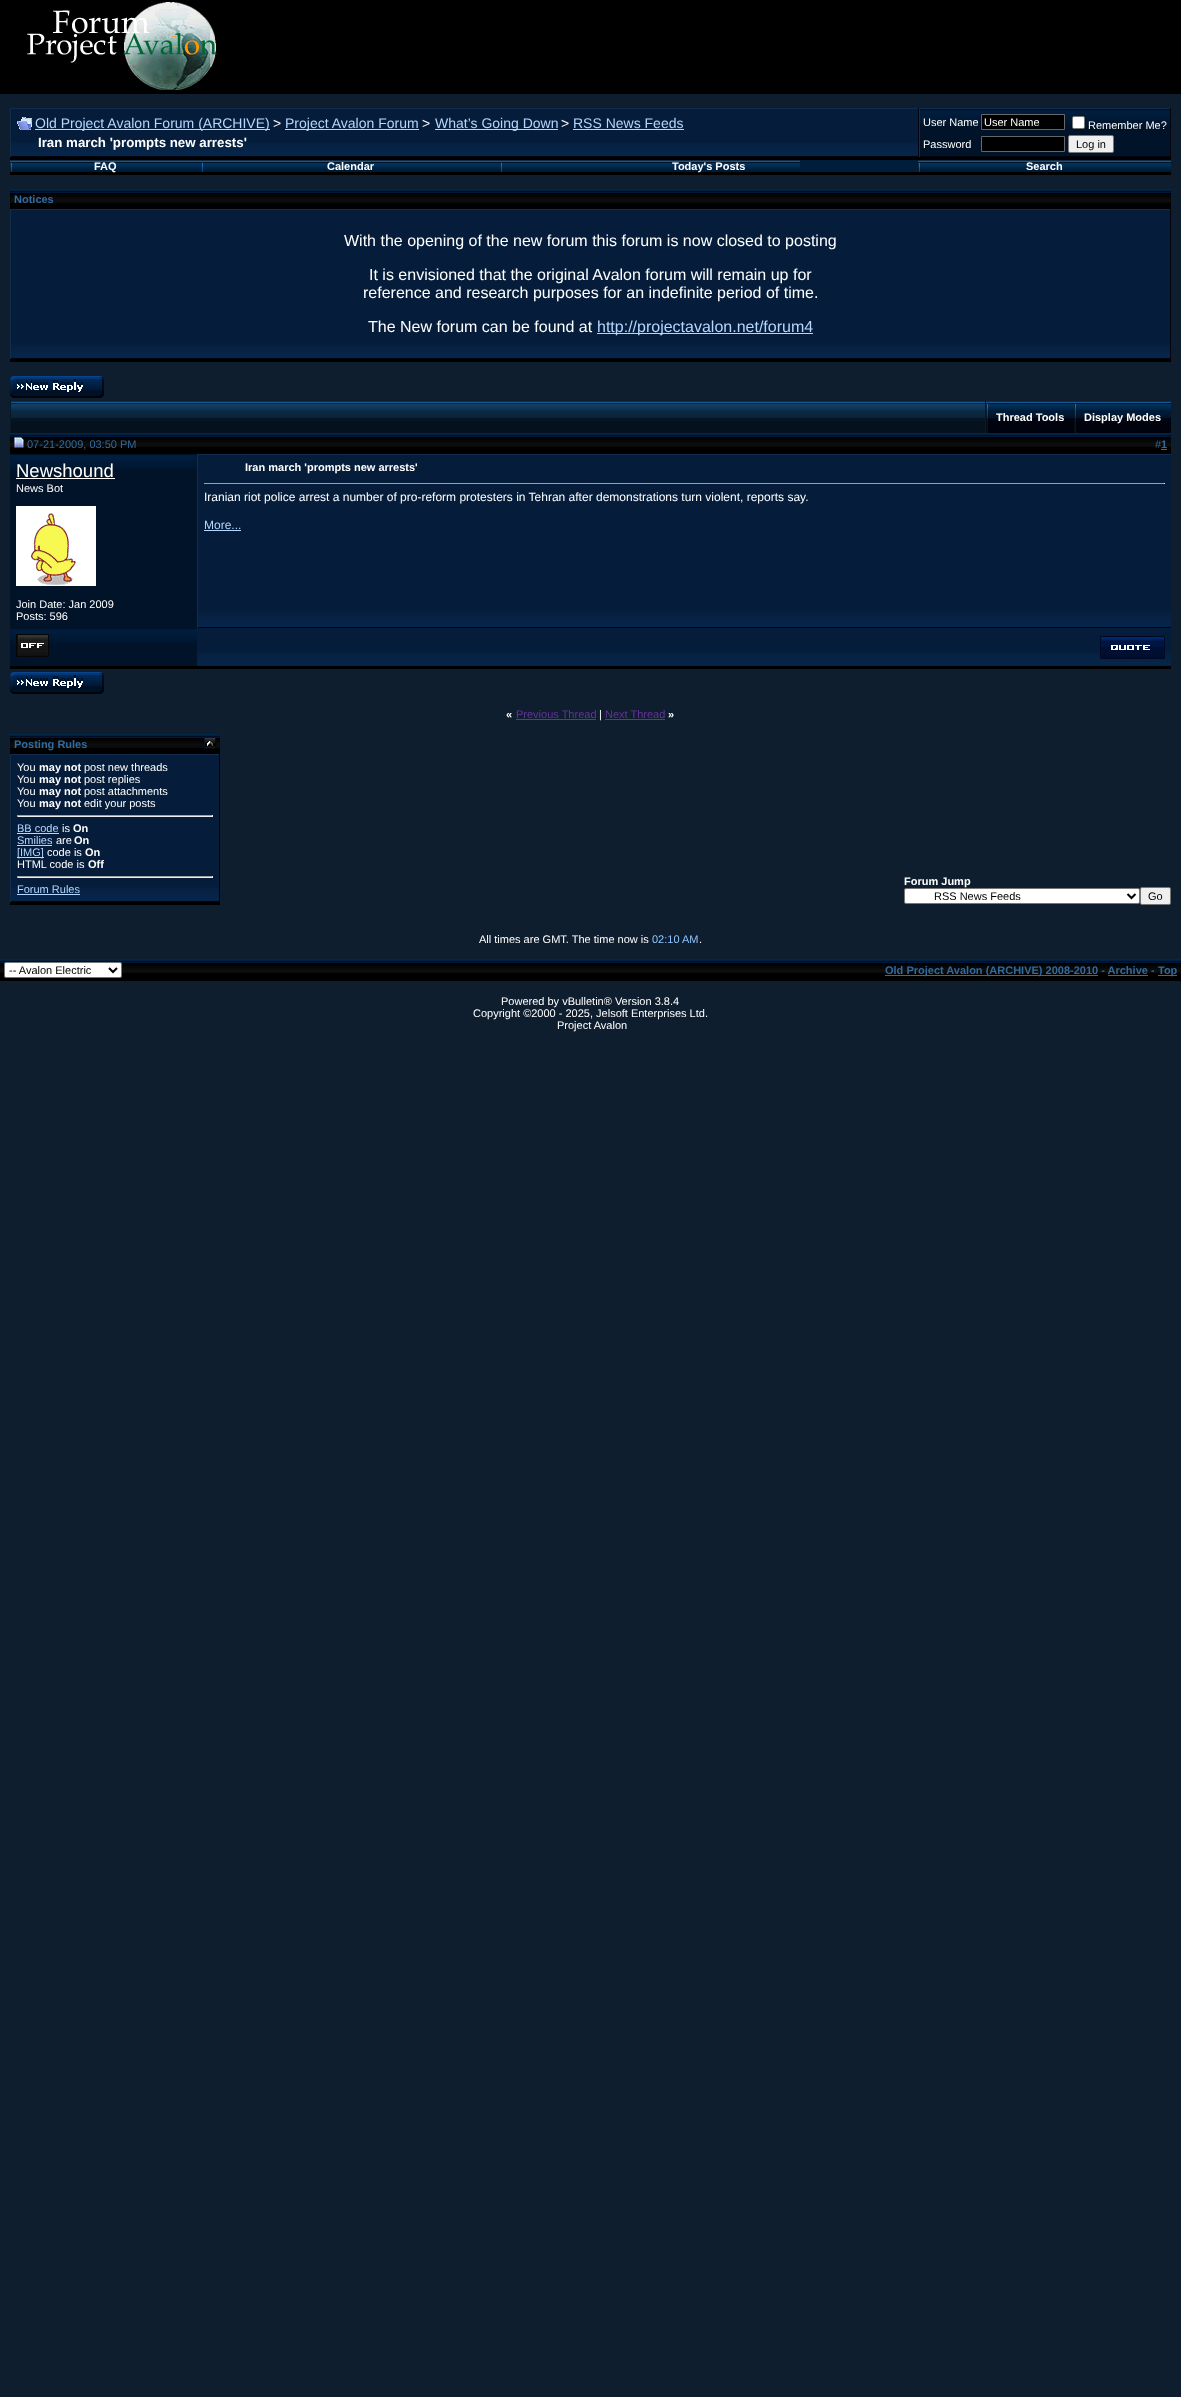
<svg xmlns="http://www.w3.org/2000/svg" width="1181" height="2397">
<style>
.a{font:14px Liberation Sans;fill:#b4d6ff}
.b{font:14px Liberation Sans;fill:#fff}
.c{font:bold 13.3px Liberation Sans;fill:#fff}
.d{font:11px Liberation Sans;fill:#fff}
.e{font:11px Liberation Sans;fill:#000}
.f{font:bold 11px Liberation Sans;fill:#fff}
.g{font:bold 11px Liberation Sans;fill:#316b9f}
.h{font:16px Liberation Sans;fill:#fff}
.i{font:16px Liberation Sans;fill:#b4d6ff}
.j{font:11px Liberation Sans;fill:#316b9f}
.k{font:18.5px Liberation Sans;fill:#fff}
.l{font:12px Liberation Sans;fill:#fff}
.m{font:12px Liberation Sans;fill:#b4d6ff}
.n{font:11px Liberation Sans;fill:#639}
.o{font:11px Liberation Sans;fill:#b4d6ff}
.p{font:11px Liberation Sans;fill:#90c4ff}
</style>
<rect width="100%" height="100%" fill="#0f1e2e"/>
<path fill="#000" d="M0 0h1181v94H0z"/>
<image href="1.png" x="27" y="2" width="190" height="88"/>
<path fill="#000" d="M10 157h1161v3H10z"/>
<path fill="#051d3a" d="M11 109h907v33H11z"/>
<image href="2.png" x="11" y="142" width="907" height="14"/>
<path fill="#112c4c" d="M10 108h1161v1H10z"/>
<path fill="#030410" d="M918 108h1v49H918z"/>
<path fill="#030410" d="M10 156h909v1H10z"/>
<path fill="#112c4c" d="M10 108h1v49H10z"/>
<image href="3.png" x="17" y="117" width="15" height="13"/>
<path fill="#b4d6ff" d="M35 129h235v1H35z"/>
<path fill="#b4d6ff" d="M285 129h134v1H285z"/>
<path fill="#b4d6ff" d="M435 129h123v1H435z"/>
<path fill="#b4d6ff" d="M573 129h111v1H573z"/>
<path fill="#001328" d="M920 109h250v47H920z"/>
<image href="4.png" x="920" y="110" width="250" height="15"/>
<path fill="#030410" d="M1170 108h1v49H1170z"/>
<path fill="#030410" d="M919 156h252v1H919z"/>
<path fill="#112c4c" d="M919 108h1v49H919z"/>
<path fill="#000" stroke="#666" d="M981.5 114.5h83v15H981.5z"/>
<rect fill="#fff" stroke="#767676" x="1072.5" y="116.5" width="12" height="12" rx="1.5"/>
<path fill="#000" stroke="#666" d="M981.5 136.5h83v15H981.5z"/>
<rect fill="#efefef" stroke="#767676" x="1068.5" y="135.5" width="45" height="17" rx="1.5"/>
<path fill="#000" d="M10 172h1161v3H10z"/>
<image href="5.png" x="10" y="160" width="191" height="12"/>
<image href="6.png" x="201" y="160" width="299" height="12"/>
<path fill="#001d3b" d="M800 160h118v12H800z"/>
<image href="7.png" x="500" y="160" width="300" height="12"/>
<image href="8.png" x="918" y="160" width="253" height="12"/>
<path fill="#000" d="M10 359h1161v3H10z"/>
<path fill="#000" d="M10 203h1161v6H10z"/>
<image href="9.png" x="10" y="189" width="1161" height="14"/>
<path fill="#051d3a" d="M11 210h1159v134H11z"/>
<image href="10.png" x="11" y="344" width="1159" height="14"/>
<path fill="#112c4c" d="M10 209h1161v1H10z"/>
<path fill="#030410" d="M1170 209h1v150H1170z"/>
<path fill="#030410" d="M10 358h1161v1H10z"/>
<path fill="#112c4c" d="M10 209h1v150H10z"/>
<path fill="#b4d6ff" d="M597 333h216v1H597z"/>
<image href="11.png" x="10" y="376" width="94" height="22"/>
<path fill="#05121d" d="M11 421h974v12H11z"/>
<image href="12.png" x="11" y="401" width="974" height="20"/>
<path fill="#071a2b" d="M985 401h1v32H985z"/>
<path fill="#071a2b" d="M10 401h1v32H10z"/>
<image href="13.png" x="986" y="401" width="88" height="32"/>
<image href="14.png" x="1074" y="401" width="97" height="32"/>
<path fill="#112c4c" d="M198 454h973v1H198z"/>
<path fill="#000" d="M10 666h1161v3H10z"/>
<path fill="#000" d="M10 447h1161v7H10z"/>
<image href="15.png" x="10" y="433" width="187" height="14"/>
<image href="16.png" x="14" y="437" width="10" height="11"/>
<image href="17.png" x="197" y="433" width="974" height="14"/>
<path fill="#316b9f" d="M1161 449h6v1H1161z"/>
<path fill="#001328" d="M10 454h187v212H10z"/>
<image href="18.png" x="10" y="455" width="187" height="15"/>
<path fill="#fff" d="M16 478h99v1H16z"/>
<image href="19.png" x="16" y="506" width="80" height="80"/>
<path fill="#051d3a" d="M198 455h973v112H198z"/>
<image href="20.png" x="198" y="567" width="973" height="60"/>
<path fill="#030410" d="M197 627h974v1H197z"/>
<path fill="#112c4c" d="M197 454h1v174H197z"/>
<path fill="#9f9f9f" d="M204 483h961v1H204z"/>
<path fill="#eee" d="M1164 483h1v1H1164z"/>
<path fill="#b4d6ff" d="M204 530h37v1H204z"/>
<image href="18.png" x="10" y="629" width="187" height="15"/>
<image href="21.png" x="16" y="634" width="33" height="23"/>
<path fill="#051d3a" d="M197 628h974v24H197z"/>
<image href="22.png" x="197" y="652" width="974" height="14"/>
<image href="23.png" x="1100" y="636" width="65" height="23"/>
<image href="11.png" x="10" y="672" width="94" height="22"/>
<path fill="#639" d="M516 719h80v1H516z"/>
<path fill="#639" d="M605 719h60v1H605z"/>
<path fill="#000" d="M10 902h210v3H10z"/>
<path fill="#000" d="M10 748h210v6H10z"/>
<image href="24.png" x="10" y="734" width="210" height="14"/>
<image href="25.png" x="204" y="738" width="12" height="11"/>
<path fill="#051d3a" d="M11 755h208v132H11z"/>
<image href="26.png" x="11" y="887" width="208" height="14"/>
<path fill="#112c4c" d="M10 754h210v1H10z"/>
<path fill="#030410" d="M219 754h1v148H219z"/>
<path fill="#030410" d="M10 901h210v1H10z"/>
<path fill="#112c4c" d="M10 754h1v148H10z"/>
<path fill="#9f9f9f" d="M17 815h196v1H17z"/>
<path fill="#eee" d="M212 815h1v2H212z"/>
<path fill="#eee" d="M17 816h196v1H17z"/>
<path fill="#9f9f9f" d="M17 815h1v2H17z"/>
<path fill="#b4d6ff" d="M17 833h42v1H17z"/>
<path fill="#b4d6ff" d="M17 845h35v1H17z"/>
<path fill="#b4d6ff" d="M17 857h27v1H17z"/>
<path fill="#9f9f9f" d="M17 876h196v1H17z"/>
<path fill="#eee" d="M212 876h1v2H212z"/>
<path fill="#eee" d="M17 877h196v1H17z"/>
<path fill="#9f9f9f" d="M17 876h1v2H17z"/>
<path fill="#b4d6ff" d="M17 894h63v1H17z"/>
<rect fill="#fff" stroke="#767676" x="904.5" y="888.5" width="235" height="15" rx="1.5"/>
<path fill="none" stroke="#000" stroke-width="2" d="M1127.5 894l4 4l4-4"/>
<rect fill="#efefef" stroke="#767676" x="1140.5" y="887.5" width="30" height="17" rx="1.5"/>
<path fill="#000" d="M0 973h1181v8H0z"/>
<image href="27.png" x="0" y="959" width="126" height="14"/>
<rect fill="#fff" stroke="#767676" x="4.5" y="962.5" width="117" height="15" rx="1.5"/>
<path fill="none" stroke="#000" stroke-width="2" d="M109 968l4 4l4-4"/>
<image href="28.png" x="126" y="959" width="1055" height="14"/>
<path fill="#316b9f" d="M885 975h213v1H885z"/>
<path fill="#316b9f" d="M1108 975h40v1H1108z"/>
<path fill="#316b9f" d="M1158 975h19v1H1158z"/>
<text class="a" x="35" y="128">Old Project Avalon Forum (ARCHIVE)</text>
<text class="b" x="273" y="128">&gt;</text>
<text class="a" x="285" y="128">Project Avalon Forum</text>
<text class="b" x="422" y="128">&gt;</text>
<text class="a" x="435" y="128">What’s Going Down</text>
<text class="b" x="561" y="128">&gt;</text>
<text class="a" x="573" y="128">RSS News Feeds</text>
<text class="c" x="38" y="147">Iran march 'prompts new arrests'</text>
<text class="d" x="923" y="126">User Name</text>
<text class="d" x="984" y="126">User Name</text>
<text class="d" x="1088" y="129">Remember Me?</text>
<text class="d" x="923" y="148">Password</text>
<text class="e" x="1076" y="148">Log in</text>
<text class="f" x="94" y="170">FAQ</text>
<text class="f" x="327" y="170">Calendar</text>
<text class="f" x="672" y="170">Today's Posts</text>
<text class="f" x="1026" y="170">Search</text>
<text class="g" x="14" y="203">Notices</text>
<text class="h" x="344" y="246">With the opening of the new forum this forum is now closed to posting</text>
<text class="h" x="369" y="280">It is envisioned that the original Avalon forum will remain up for</text>
<text class="h" x="363" y="298">reference and research purposes for an indefinite period of time.</text>
<text class="h" x="368" y="332">The New forum can be found at</text>
<text class="i" x="597" y="332">http://projectavalon.net/forum4</text>
<text class="f" x="996" y="421">Thread Tools</text>
<text class="f" x="1084" y="421">Display Modes</text>
<text class="j" x="27" y="448">07-21-2009, 03:50 PM</text>
<text class="j" x="1155" y="448">#</text>
<text class="g" x="1161" y="448">1</text>
<text class="k" x="16" y="477">Newshound</text>
<text class="d" x="16" y="492">News Bot</text>
<text class="d" x="16" y="608">Join Date: Jan 2009</text>
<text class="d" x="16" y="620">Posts: 596</text>
<text class="f" x="245" y="471">Iran march 'prompts new arrests'</text>
<text class="l" x="204" y="501">Iranian riot police arrest a number of pro-reform protesters in Tehran after demonstrations turn violent, reports say.</text>
<text class="m" x="204" y="529">More...</text>
<text class="f" x="506" y="718">«</text>
<text class="n" x="516" y="718">Previous Thread</text>
<text class="d" x="599" y="718">|</text>
<text class="n" x="605" y="718">Next Thread</text>
<text class="f" x="668" y="718">»</text>
<text class="g" x="14" y="748">Posting Rules</text>
<text class="d" x="17" y="771">You</text>
<text class="f" x="39" y="771">may not</text>
<text class="d" x="84" y="771">post new threads</text>
<text class="d" x="17" y="783">You</text>
<text class="f" x="39" y="783">may not</text>
<text class="d" x="84" y="783">post replies</text>
<text class="d" x="17" y="795">You</text>
<text class="f" x="39" y="795">may not</text>
<text class="d" x="84" y="795">post attachments</text>
<text class="d" x="17" y="807">You</text>
<text class="f" x="39" y="807">may not</text>
<text class="d" x="84" y="807">edit your posts</text>
<text class="o" x="17" y="832">BB code</text>
<text class="d" x="62" y="832">is</text>
<text class="f" x="73" y="832">On</text>
<text class="o" x="17" y="844">Smilies</text>
<text class="d" x="56" y="844">are</text>
<text class="f" x="74" y="844">On</text>
<text class="o" x="17" y="856">[IMG]</text>
<text class="d" x="47" y="856">code is</text>
<text class="f" x="85" y="856">On</text>
<text class="d" x="17" y="868">HTML code is</text>
<text class="f" x="88" y="868">Off</text>
<text class="o" x="17" y="893">Forum Rules</text>
<text class="f" x="904" y="885">Forum Jump</text>
<text class="e" x="934" y="900">RSS News Feeds</text>
<text class="e" x="1148" y="900">Go</text>
<text class="d" x="479" y="943">All times are GMT. The time now is</text>
<text class="p" x="652" y="943">02:10 AM</text>
<text class="d" x="699" y="943">.</text>
<text class="e" x="9" y="974">-- Avalon Electric</text>
<text class="g" x="885" y="974">Old Project Avalon (ARCHIVE) 2008-2010 - Archive -</text>
<text class="g" x="1158" y="974">Top</text>
<text class="d" x="501" y="1005">Powered by vBulletin® Version 3.8.4</text>
<text class="d" x="473" y="1017">Copyright ©2000 - 2025, Jelsoft Enterprises Ltd.</text>
<text class="d" x="557" y="1029">Project Avalon</text>
</svg>
